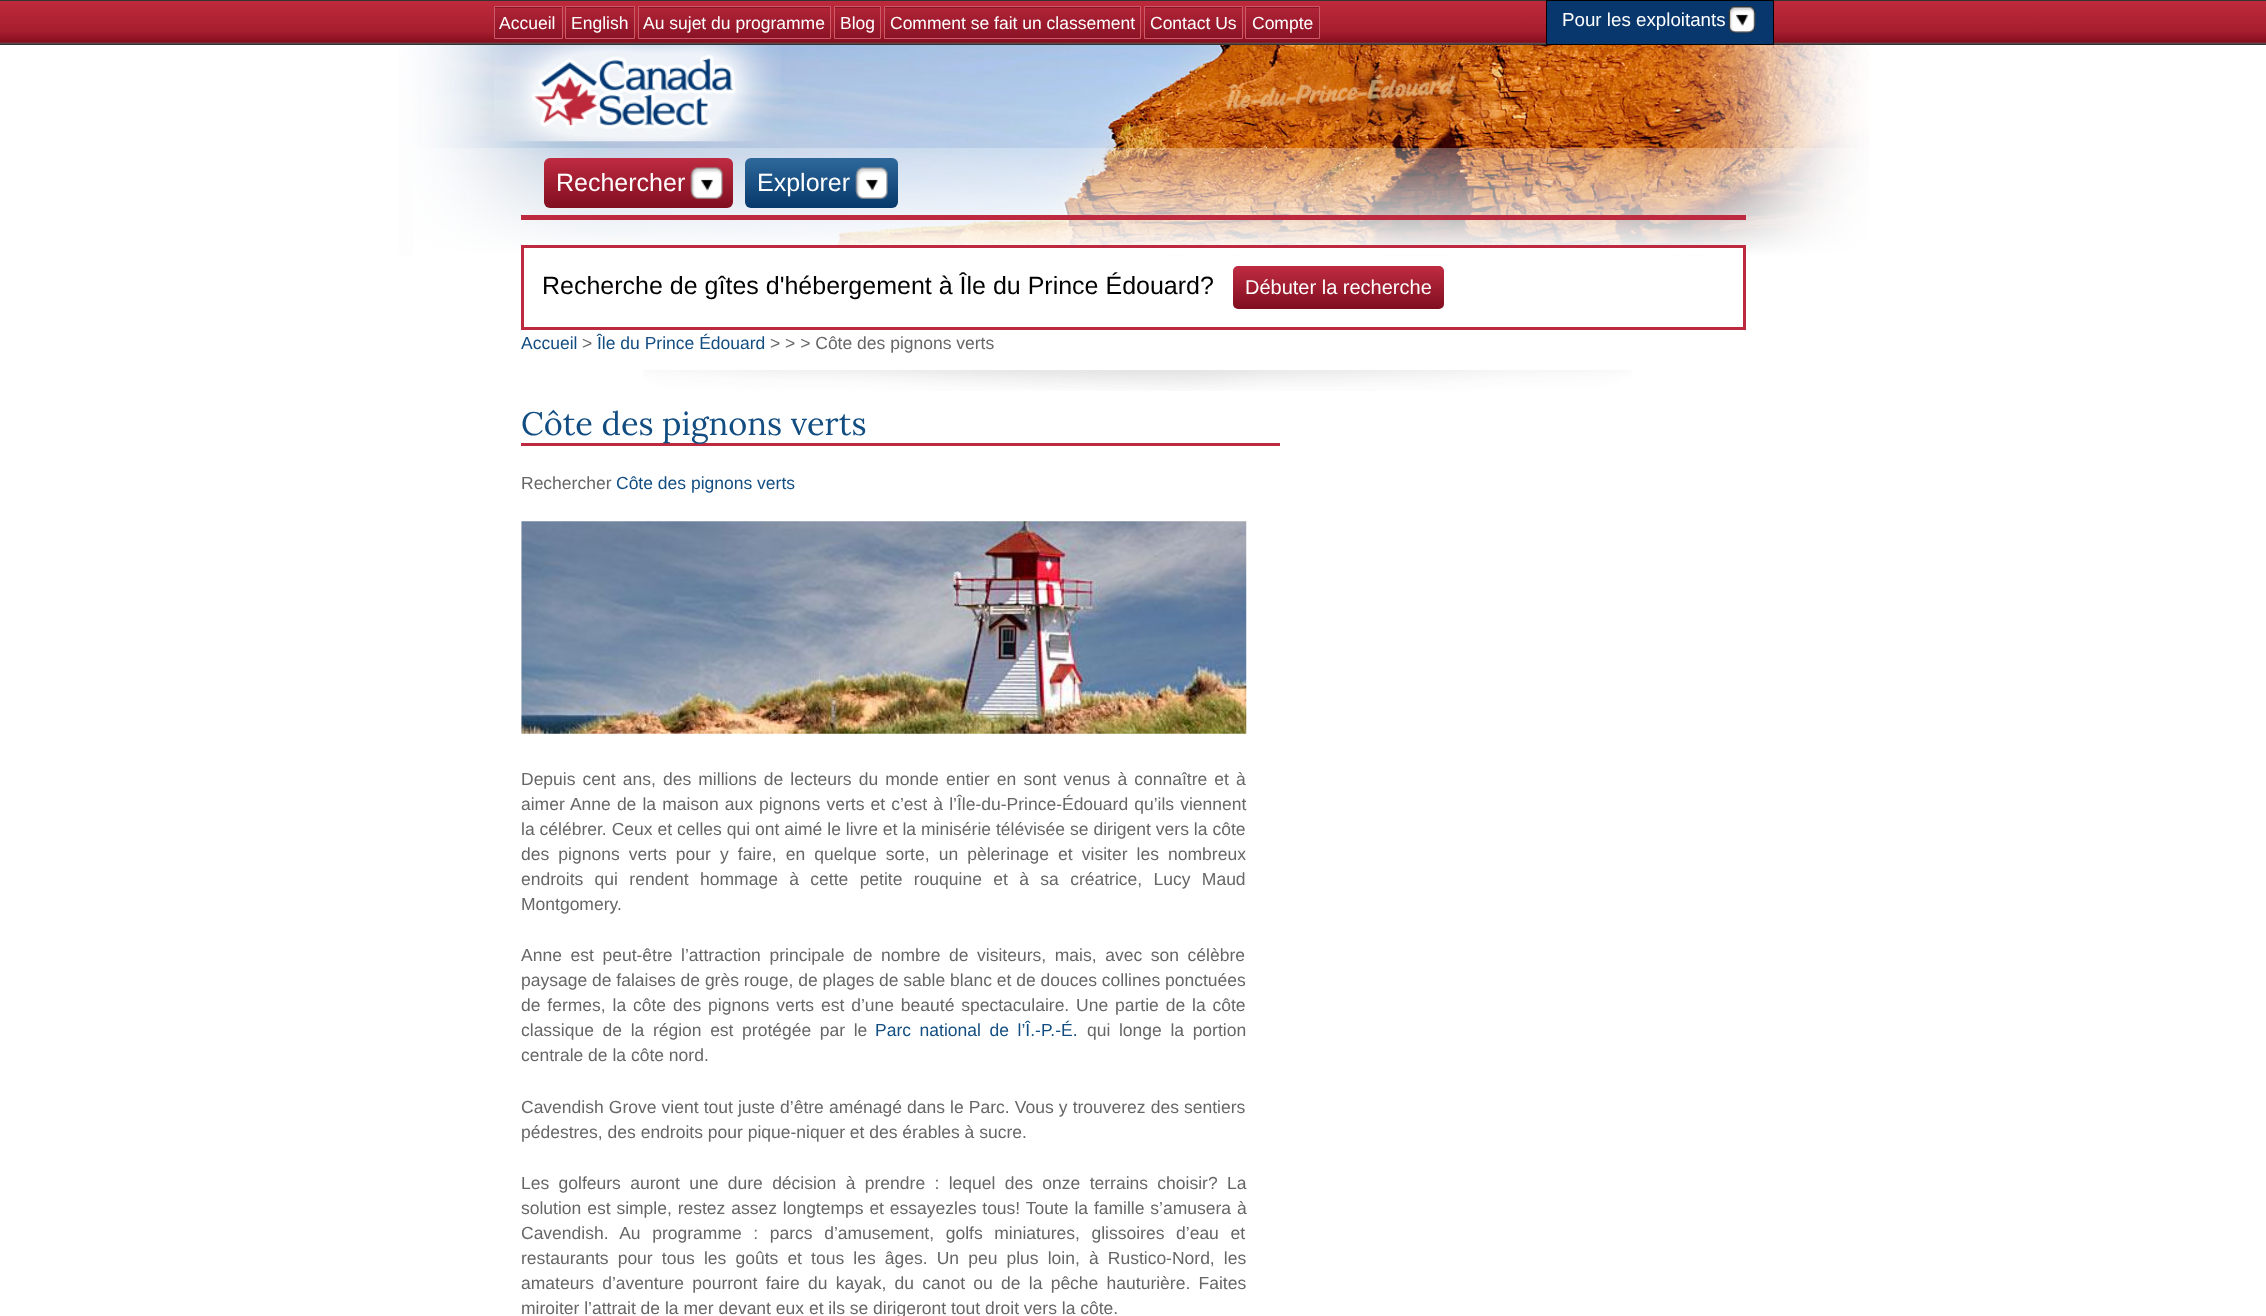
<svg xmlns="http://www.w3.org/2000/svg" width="2266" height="1316">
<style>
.a{font:17.5px Liberation Sans;fill:#fff}
.b{font:18.75px Liberation Sans;fill:#fff}
.c{font:25px Liberation Sans;fill:#fff}
.d{font:25px Liberation Sans;fill:#000}
.e{font:20px Liberation Sans;fill:#fff}
.f{font:17.5px Liberation Sans;fill:#124d81}
.g{font:17.5px Liberation Sans;fill:#666}
.h{font:32.5px Lora;fill:#124d81}
</style>
<defs>
<linearGradient id="g1" gradientUnits="userSpaceOnUse" x1="1133" y1="1.2" x2="1133" y2="44"><stop offset="0" stop-color="#bd2a3b"/><stop offset="0.7" stop-color="#a71e2f"/><stop offset="0.95" stop-color="#870e1d"/><stop offset="1" stop-color="#555"/></linearGradient>
<linearGradient id="g2" gradientUnits="userSpaceOnUse" x1="528" y1="-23" x2="528" y2="7.5"><stop offset="0.05" stop-color="#b02336"/><stop offset="1" stop-color="#8a1325"/></linearGradient>
<linearGradient id="g3" gradientUnits="userSpaceOnUse" x1="528" y1="7.5" x2="528" y2="38"><stop offset="0.05" stop-color="#b02336"/><stop offset="1" stop-color="#8a1325"/></linearGradient>
<linearGradient id="g4" gradientUnits="userSpaceOnUse" x1="600" y1="-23" x2="600" y2="7.5"><stop offset="0.05" stop-color="#b02336"/><stop offset="1" stop-color="#8a1325"/></linearGradient>
<linearGradient id="g5" gradientUnits="userSpaceOnUse" x1="600" y1="7.5" x2="600" y2="38"><stop offset="0.05" stop-color="#b02336"/><stop offset="1" stop-color="#8a1325"/></linearGradient>
<linearGradient id="g6" gradientUnits="userSpaceOnUse" x1="734" y1="-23" x2="734" y2="7.5"><stop offset="0.05" stop-color="#b02336"/><stop offset="1" stop-color="#8a1325"/></linearGradient>
<linearGradient id="g7" gradientUnits="userSpaceOnUse" x1="734" y1="7.5" x2="734" y2="38"><stop offset="0.05" stop-color="#b02336"/><stop offset="1" stop-color="#8a1325"/></linearGradient>
<linearGradient id="g8" gradientUnits="userSpaceOnUse" x1="858" y1="-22" x2="858" y2="7.5"><stop offset="0.05" stop-color="#b02336"/><stop offset="1" stop-color="#8a1325"/></linearGradient>
<linearGradient id="g9" gradientUnits="userSpaceOnUse" x1="858" y1="7.5" x2="858" y2="38"><stop offset="0.05" stop-color="#b02336"/><stop offset="1" stop-color="#8a1325"/></linearGradient>
<linearGradient id="g10" gradientUnits="userSpaceOnUse" x1="1013" y1="-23" x2="1013" y2="7.5"><stop offset="0.05" stop-color="#b02336"/><stop offset="1" stop-color="#8a1325"/></linearGradient>
<linearGradient id="g11" gradientUnits="userSpaceOnUse" x1="1013" y1="7.5" x2="1013" y2="38"><stop offset="0.05" stop-color="#b02336"/><stop offset="1" stop-color="#8a1325"/></linearGradient>
<linearGradient id="g12" gradientUnits="userSpaceOnUse" x1="1193" y1="-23" x2="1193" y2="7.5"><stop offset="0.05" stop-color="#b02336"/><stop offset="1" stop-color="#8a1325"/></linearGradient>
<linearGradient id="g13" gradientUnits="userSpaceOnUse" x1="1193" y1="7.5" x2="1193" y2="38"><stop offset="0.05" stop-color="#b02336"/><stop offset="1" stop-color="#8a1325"/></linearGradient>
<linearGradient id="g14" gradientUnits="userSpaceOnUse" x1="1283" y1="-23" x2="1283" y2="7.5"><stop offset="0.05" stop-color="#b02336"/><stop offset="1" stop-color="#8a1325"/></linearGradient>
<linearGradient id="g15" gradientUnits="userSpaceOnUse" x1="1283" y1="7.5" x2="1283" y2="38"><stop offset="0.05" stop-color="#b02336"/><stop offset="1" stop-color="#8a1325"/></linearGradient>
<linearGradient id="g16" gradientUnits="userSpaceOnUse" x1="1133" y1="105" x2="1133" y2="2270"><stop offset="0" stop-color="#fff" stop-opacity="0"/><stop offset="0.07" stop-color="#fff"/><stop offset="1" stop-color="#fff"/></linearGradient>
<linearGradient id="g17" gradientUnits="userSpaceOnUse" x1="638" y1="157" x2="638" y2="208"><stop offset="0.05" stop-color="#bd2a40"/><stop offset="1" stop-color="#800e1f"/></linearGradient>
<linearGradient id="g18" gradientUnits="userSpaceOnUse" x1="821" y1="158" x2="821" y2="208"><stop offset="0.05" stop-color="#2c6699"/><stop offset="1" stop-color="#06386b"/></linearGradient>
<linearGradient id="g19" gradientUnits="userSpaceOnUse" x1="1338" y1="266" x2="1338" y2="309"><stop offset="0.05" stop-color="#bd2a40"/><stop offset="1" stop-color="#800e1f"/></linearGradient>
</defs>
<rect width="100%" height="100%" fill="#fff"/>
<path fill="url(#g1)" d="M0 1h2266v43H0z"/>
<path fill="#333" d="M0 0h2266v1H0z"/>
<path fill="#333" d="M0 44h2266v1H0z"/>
<path fill="url(#g2)" d="M494 7h69v1H494z"/>
<path fill="url(#g3)" d="M495 8h67v30H495z"/>
<path fill="none" stroke="#cb5b68" d="M494.5 6.5h68v32H494.5z"/>
<path fill="url(#g4)" d="M565 7h70v1H565z"/>
<path fill="url(#g5)" d="M566 8h68v30H566z"/>
<path fill="none" stroke="#cb5b68" d="M565.5 6.5h69v32H565.5z"/>
<path fill="url(#g6)" d="M638 7h193v1H638z"/>
<path fill="url(#g7)" d="M639 8h191v30H639z"/>
<path fill="none" stroke="#cb5b68" d="M638.5 6.5h192v32H638.5z"/>
<path fill="url(#g8)" d="M834 7h47v1H834z"/>
<path fill="url(#g9)" d="M835 8h45v30H835z"/>
<path fill="none" stroke="#cb5b68" d="M834.5 6.5h46v32H834.5z"/>
<path fill="url(#g10)" d="M884 7h257v1H884z"/>
<path fill="url(#g11)" d="M885 8h255v30H885z"/>
<path fill="none" stroke="#cb5b68" d="M884.5 6.5h256v32H884.5z"/>
<path fill="url(#g12)" d="M1144 7h99v1H1144z"/>
<path fill="url(#g13)" d="M1145 8h97v30H1145z"/>
<path fill="none" stroke="#cb5b68" d="M1144.5 6.5h98v32H1144.5z"/>
<path fill="url(#g14)" d="M1245 7h75v1H1245z"/>
<path fill="url(#g15)" d="M1246 8h73v30H1246z"/>
<path fill="none" stroke="#cb5b68" d="M1245.5 6.5h74v32H1245.5z"/>
<path fill="#07376d" d="M1547 1h226v43H1547z"/>
<image href="1.png" x="1728" y="6" width="28" height="28"/>
<path fill="none" stroke="#000" d="M1546.5 0.5h227v44H1546.5z"/>
<image href="2.png" x="398" y="45" width="1471" height="211"/>
<image href="3.png" x="494" y="45" width="287" height="97"/>
<path fill="url(#g16)" d="M413 148h1456v108H413z"/>
<path fill="#bd2a40" d="M521 215h1225v5H521z"/>
<rect fill="url(#g17)" x="544" y="158" width="189" height="50" rx="6"/>
<image href="4.png" x="690" y="167" width="33" height="32"/>
<rect fill="url(#g18)" x="745" y="158" width="153" height="50" rx="6"/>
<image href="5.png" x="855" y="167" width="33" height="32"/>
<path fill="#fff" d="M524 248h1219v7H524z"/>
<path fill="none" stroke="#bd2a40" stroke-width="3" d="M522.5 246.5h1222v82H522.5z"/>
<rect fill="url(#g19)" x="1233" y="266" width="211" height="43" rx="5"/>
<image href="6.png" x="643" y="370" width="989" height="21"/>
<path fill="#bd2a40" d="M521 443h759v3H521z"/>
<image href="7.png" x="521" y="521" width="726" height="213"/>
<text class="a" x="499" y="29">Accueil</text>
<text class="a" x="571" y="29">English</text>
<text class="a" x="643" y="29">Au sujet du programme</text>
<text class="a" x="840" y="29">Blog</text>
<text class="a" x="890" y="29">Comment se fait un classement</text>
<text class="a" x="1150" y="29">Contact Us</text>
<text class="a" x="1252" y="29">Compte</text>
<text class="b" x="1562" y="26">Pour les exploitants</text>
<text class="c" x="556" y="191">Rechercher</text>
<text class="c" x="757" y="191">Explorer</text>
<text class="d" x="542" y="294">Recherche de gîtes d'hébergement à Île du Prince Édouard?</text>
<text class="e" x="1245" y="294">Débuter la recherche</text>
<text class="f" x="521" y="349">Accueil</text>
<text class="g" x="582" y="349">&gt;</text>
<text class="f" x="597" y="349">Île du Prince Édouard</text>
<text class="g" x="770" y="349">&gt; &gt; &gt; Côte des pignons verts</text>
<text class="h" x="521" y="435">Côte des pignons verts</text>
<text class="g" x="521" y="489">Rechercher</text>
<text class="f" x="616" y="489">Côte des pignons verts</text>
<text class="g" x="521" y="785" word-spacing="2.25">Depuis cent ans, des millions de lecteurs du monde entier en sont venus à connaître et à</text>
<text class="g" x="521" y="810" word-spacing="1.25">aimer Anne de la maison aux pignons verts et c’est à l’Île-du-Prince-Édouard qu’ils viennent</text>
<text class="g" x="521" y="835" word-spacing="0.1">la célébrer. Ceux et celles qui ont aimé le livre et la minisérie télévisée se dirigent vers la côte</text>
<text class="g" x="521" y="860" word-spacing="4.25">des pignons verts pour y faire, en quelque sorte, un pèlerinage et visiter les nombreux</text>
<text class="g" x="521" y="885" word-spacing="6.5">endroits qui rendent hommage à cette petite rouquine et à sa créatrice, Lucy Maud</text>
<text class="g" x="521" y="910">Montgomery.</text>
<text class="g" x="521" y="961" word-spacing="3.75">Anne est peut-être l’attraction principale de nombre de visiteurs, mais, avec son célèbre</text>
<text class="g" x="521" y="986">paysage de falaises de grès rouge, de plages de sable blanc et de douces collines ponctuées</text>
<text class="g" x="521" y="1011" word-spacing="2">de fermes, la côte des pignons verts est d’une beauté spectaculaire. Une partie de la côte</text>
<text class="g" x="521" y="1036" word-spacing="3.75">classique de la région est protégée par le</text>
<text class="f" x="875" y="1036" word-spacing="3.75">Parc national de l’Î.-P.-É.</text>
<text class="g" x="1087" y="1036" word-spacing="3.75">qui longe la portion</text>
<text class="g" x="521" y="1061">centrale de la côte nord.</text>
<text class="g" x="521" y="1113" word-spacing="0.25">Cavendish Grove vient tout juste d’être aménagé dans le Parc. Vous y trouverez des sentiers</text>
<text class="g" x="521" y="1138">pédestres, des endroits pour pique-niquer et des érables à sucre.</text>
<text class="g" x="521" y="1189" word-spacing="4.5">Les golfeurs auront une dure décision à prendre : lequel des onze terrains choisir? La</text>
<text class="g" x="521" y="1214" word-spacing="1">solution est simple, restez assez longtemps et essayezles tous! Toute la famille s’amusera à</text>
<text class="g" x="521" y="1239" word-spacing="6.75">Cavendish. Au programme : parcs d’amusement, golfs miniatures, glissoires d’eau et</text>
<text class="g" x="521" y="1264" word-spacing="4.25">restaurants pour tous les goûts et tous les âges. Un peu plus loin, à Rustico-Nord, les</text>
<text class="g" x="521" y="1289" word-spacing="3.4">amateurs d’aventure pourront faire du kayak, du canot ou de la pêche hauturière. Faites</text>
<text class="g" x="521" y="1314">miroiter l’attrait de la mer devant eux et ils se dirigeront tout droit vers la côte.</text>
</svg>
